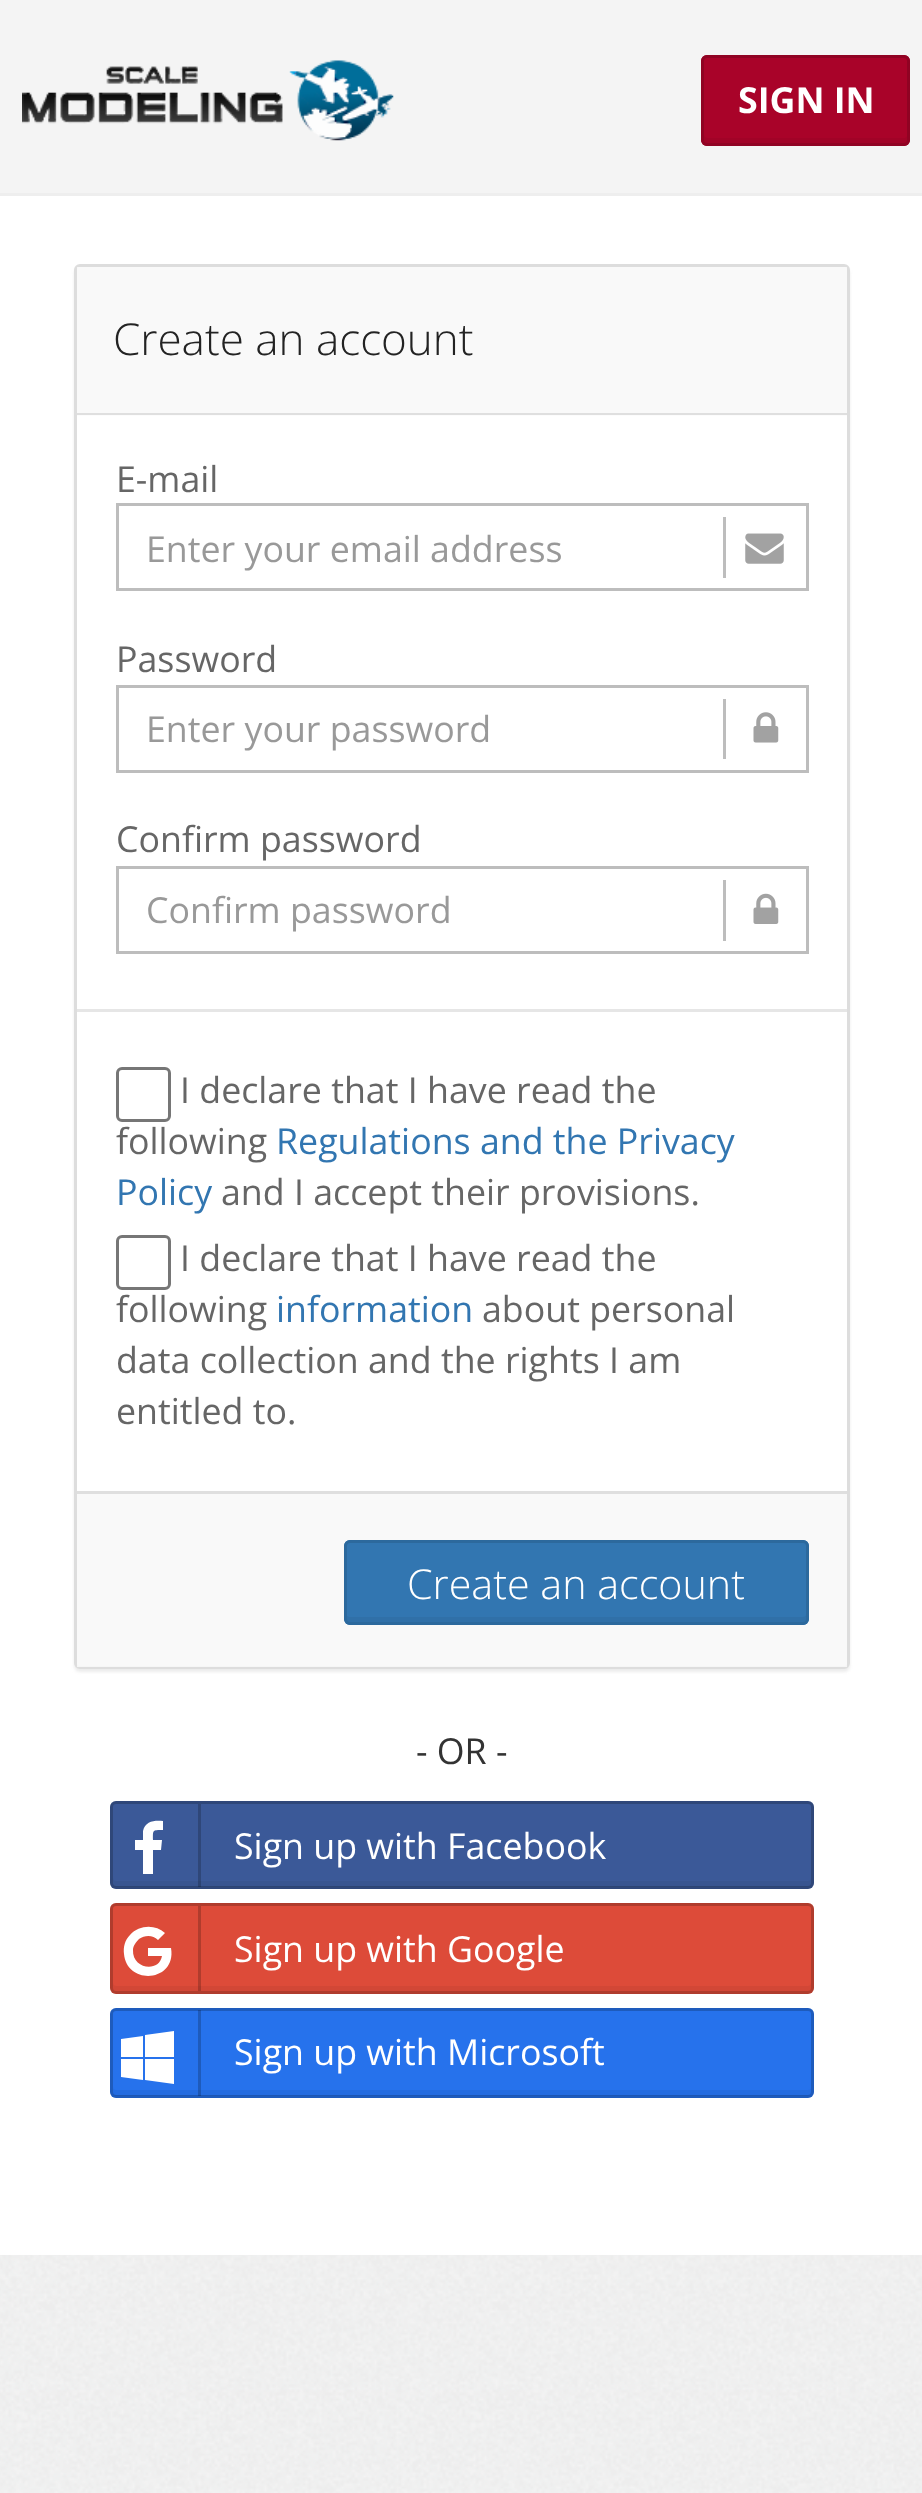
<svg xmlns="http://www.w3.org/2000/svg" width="922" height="2493">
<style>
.a{font:bold 35.75px Open Sans;fill:#fff}
.b{font:300 44px Open Sans;fill:#232323}
.c{font:35.75px Open Sans;fill:#666}
.d{font:35.75px Open Sans;fill:#999}
.e{font:35.75px Open Sans;fill:#3276b1}
.f{font:300 41.25px Open Sans;fill:#fff}
.g{font:35.75px Open Sans;fill:#333}
.h{font:35.75px Open Sans;fill:#fff}
</style>
<rect width="100%" height="100%" fill="#fff"/>
<image href="1.png" x="0" y="2255" width="922" height="238"/>
<path fill="#f4f4f4" d="M0 0h922v193H0z"/>
<path fill="#eee" d="M0 193h922v3H0z"/>
<image href="2.png" x="22" y="60" width="372" height="81"/>
<rect fill="#a90329" x="701" y="55" width="209" height="91" rx="6"/>
<path fill="#a10327" d="M704 135v5c0 2 1 3 3 3h198c2 0 3-1 3-3v-5c0 1-2 3-3 3h-198c-2 0-3-2-3-3z"/>
<rect fill="none" stroke="#900323" stroke-width="3" x="702.5" y="56.5" width="206" height="88" rx="4.5"/>
<rect fill="#ececec" filter="blur(1.5px)" x="74" y="267" width="776" height="1405" rx="6"/>
<rect fill="#fbfbfb" stroke="#ddd" stroke-width="3" x="75.5" y="265.5" width="773" height="1402" rx="4.5"/>
<path fill="#f8f8f8e6" d="M77 267h770v148H77z"/>
<path fill="#0000001a" d="M77 413h770v3H77z"/>
<path fill="#ffffffe6" d="M77 415h770v594H77z"/>
<path fill="none" stroke="#bdbdbd" stroke-width="3" d="M117.5 504.5h690v85H117.5z"/>
<path fill="#bdbdbd" d="M723 517h3v61H723z"/>
<image href="3.png" x="745" y="533" width="39" height="31"/>
<path fill="none" stroke="#bdbdbd" stroke-width="3" d="M117.5 686.5h690v85H117.5z"/>
<path fill="#bdbdbd" d="M723 699h3v60H723z"/>
<image href="4.png" x="753" y="712" width="26" height="31"/>
<path fill="none" stroke="#bdbdbd" stroke-width="3" d="M117.5 867.5h690v85H117.5z"/>
<path fill="#bdbdbd" d="M723 880h3v61H723z"/>
<image href="5.png" x="753" y="893" width="26" height="31"/>
<path fill="#fff" d="M77 1012h770v479H77z"/>
<path fill="#e6e6e6" d="M77 1009h770v3H77z"/>
<rect fill="none" stroke="#767676" stroke-width="3" x="117.5" y="1068.5" width="52" height="52" rx="4.5"/>
<rect fill="none" stroke="#767676" stroke-width="3" x="117.5" y="1236.5" width="52" height="52" rx="4.5"/>
<path fill="#f8f8f8e6" d="M77 1494h770v173H77z"/>
<path fill="#dfdfdf" d="M77 1491h770v3H77z"/>
<rect fill="#3276b1" x="344" y="1540" width="465" height="85" rx="6"/>
<path fill="#3070a8" d="M347 1616v4c0 2 1 3 3 3h453c2 0 3-1 3-3v-6c0 2-1 3-3 3h-454z"/>
<rect fill="none" stroke="#2c699d" stroke-width="3" x="345.5" y="1541.5" width="462" height="82" rx="4.5"/>
<rect fill="#3b5998" x="110" y="1801" width="704" height="88" rx="6"/>
<path fill="#385590" d="M113 1878v6c0 2 1 3 3 3h692c2 0 3-1 3-3v-6c0 2-1 3-3 3h-692c-2 0-3-1-3-3z"/>
<rect fill="none" stroke="#00000033" stroke-width="3" x="111.5" y="1802.5" width="701" height="85" rx="4.5"/>
<path fill="#00000033" d="M198 1804h3v83H198z"/>
<path fill="#fff" d="M163 1821v9c-11 0-10 0-10 10h9l-1 10h-8v24h-10v-24h-8v-10h8v-9c2-10 12-11 20-10z"/>
<rect fill="#dd4b39" x="110" y="1903" width="704" height="91" rx="6"/>
<path fill="#d24736" d="M113 1983v5c0 2 1 3 3 3h692c2 0 3-1 3-3v-5c0 1-1 3-3 3h-692c-2 0-3-2-3-3z"/>
<rect fill="none" stroke="#00000033" stroke-width="3" x="111.5" y="1904.5" width="701" height="88" rx="4.5"/>
<path fill="#00000033" d="M198 1906h3v85H198z"/>
<path fill="#fff" d="M148 1948h23c6 34-44 38-47 6c-1-7 1-14 6-19c9-10 25-11 35-2l-7 7c-5-5-13-5-19-1c-3 3-6 7-6 11c-1 19 26 23 29 6h-14z"/>
<rect fill="#2672ec" x="110" y="2008" width="704" height="90" rx="6"/>
<path fill="#246ce0" d="M113 2087v6c0 2 1 3 3 3h692c2 0 3-1 3-3v-6c0 2-1 3-3 3h-692c-2 0-3-1-3-3z"/>
<rect fill="none" stroke="#00000033" stroke-width="3" x="111.5" y="2009.5" width="701" height="87" rx="4.5"/>
<path fill="#00000033" d="M198 2010h3v86H198z"/>
<path fill="#fff" d="M143 2059v21l-22-3v-18zm0-23v21h-22v-18zm31 23v25l-29-4v-21zm0-28v26h-29v-22z"/>
<text class="a" x="738" y="113">SIGN IN</text>
<text class="b" x="113" y="355">Create an account</text>
<text class="c" x="116" y="492">E-mail</text>
<text class="d" x="146" y="562">Enter your email address</text>
<text class="c" x="116" y="672">Password</text>
<text class="d" x="146" y="742">Enter your password</text>
<text class="c" x="116" y="852">Confirm password</text>
<text class="d" x="146" y="923">Confirm password</text>
<text class="c" x="180" y="1103">I declare that I have read the</text>
<text class="c" x="116" y="1154">following</text>
<text class="e" x="276" y="1154">Regulations and the Privacy</text>
<text class="e" x="116" y="1205">Policy</text>
<text class="c" x="221" y="1205">and I accept their provisions.</text>
<text class="c" x="180" y="1271">I declare that I have read the</text>
<text class="c" x="116" y="1322">following</text>
<text class="e" x="276" y="1322">information</text>
<text class="c" x="482" y="1322">about personal</text>
<text class="c" x="116" y="1373">data collection and the rights I am</text>
<text class="c" x="116" y="1424">entitled to.</text>
<text class="f" x="407" y="1599">Create an account</text>
<text class="g" x="416" y="1764">- OR -</text>
<text class="h" x="234" y="1859">Sign up with Facebook</text>
<text class="h" x="234" y="1962">Sign up with Google</text>
<text class="h" x="234" y="2065">Sign up with Microsoft</text>
</svg>
